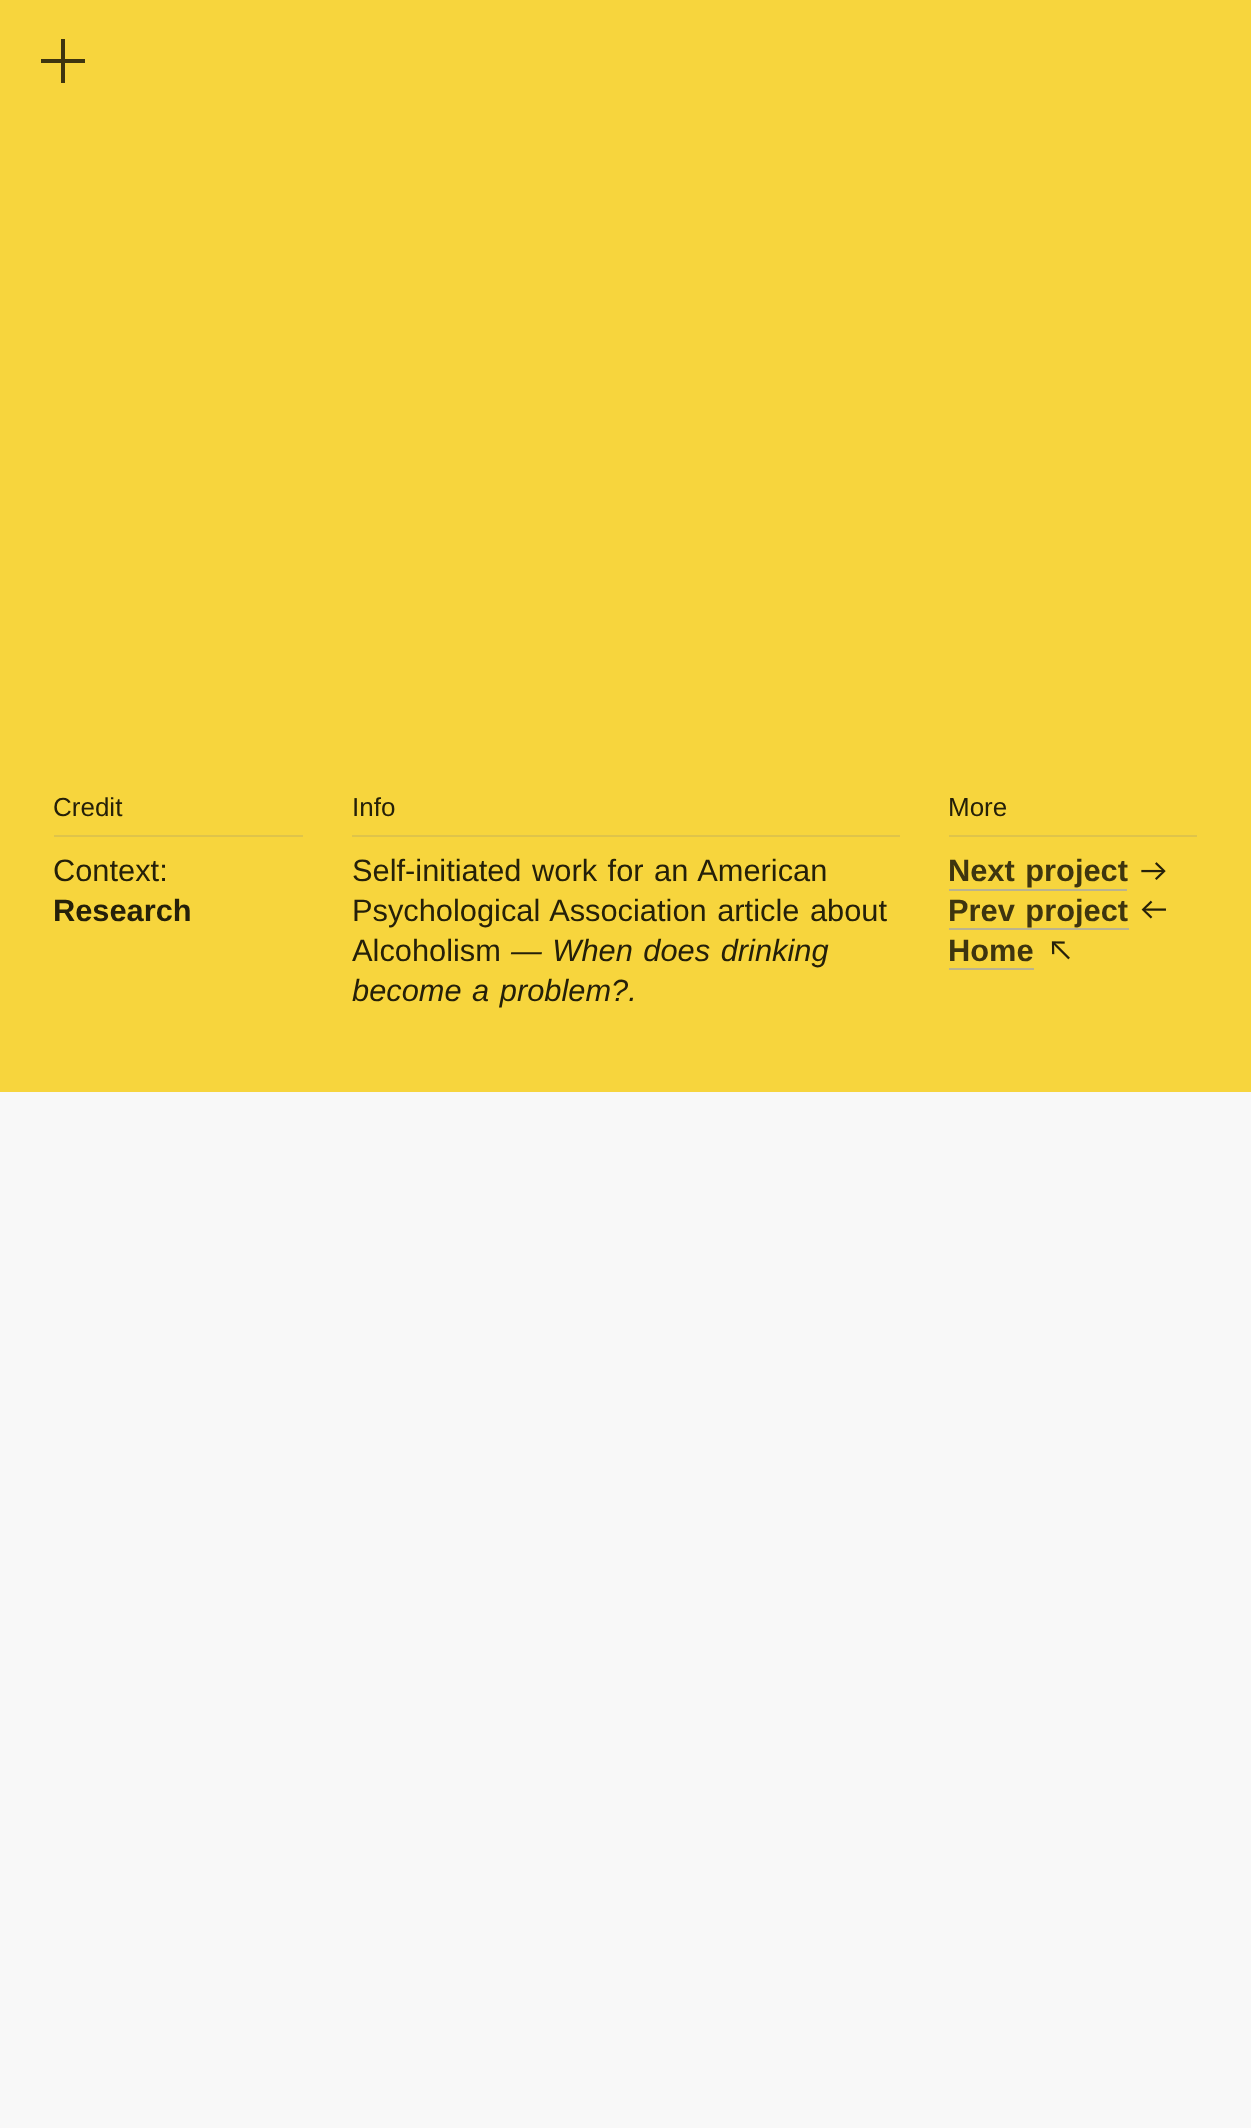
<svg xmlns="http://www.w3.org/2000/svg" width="1251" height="2128">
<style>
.a{font:26px Liberation Sans;fill:#252009}
.b{font:30.8px Liberation Sans;fill:#252009}
.c{font:bold 30.8px Liberation Sans;fill:#252009}
.d{font:italic 30.8px Liberation Sans;fill:#252009}
.e{font:bold 30.8px Liberation Sans;fill:#3e350f}
</style>
<rect width="100%" height="100%" fill="#f8f8f8"/>
<path fill="#f7d53d" d="M0 0h1251v1092H0z"/>
<path fill="#3e350f" d="M65 59v-20h-4v20h-20v4h20v20h4v-20h20v-4z"/>
<path fill="#dfc44a" d="M54 835h249v2H54z"/>
<path fill="#dfc44a" d="M352 835h548v2H352z"/>
<path fill="#dfc44a" d="M949 835h248v2H949z"/>
<path fill="#bbb38d" d="M949 889h178v2H949z"/>
<image href="1.png" x="1141" y="862" width="25" height="18"/>
<path fill="#bbb38d" d="M949 928h180v2H949z"/>
<image href="2.png" x="1141" y="900" width="25" height="19"/>
<path fill="#bbb38d" d="M949 968h85v2H949z"/>
<image href="3.png" x="1051" y="941" width="19" height="19"/>
<text class="a" x="53" y="816">Credit</text>
<text class="b" x="53" y="881">Context:</text>
<text class="c" x="53" y="921">Research</text>
<text class="a" x="352" y="816">Info</text>
<text class="b" x="352" y="881" word-spacing="2">Self-initiated work for an American</text>
<text class="b" x="352" y="921" word-spacing="2">Psychological Association article about</text>
<text class="b" x="352" y="961">Alcoholism</text>
<text class="d" x="511" y="961" word-spacing="2">— When does drinking</text>
<text class="d" x="352" y="1001" word-spacing="2">become a problem?.</text>
<text class="a" x="948" y="816">More</text>
<text class="e" x="948" y="881" word-spacing="2">Next project</text>
<text class="e" x="948" y="921" word-spacing="2">Prev project</text>
<text class="e" x="948" y="961">Home</text>
</svg>
